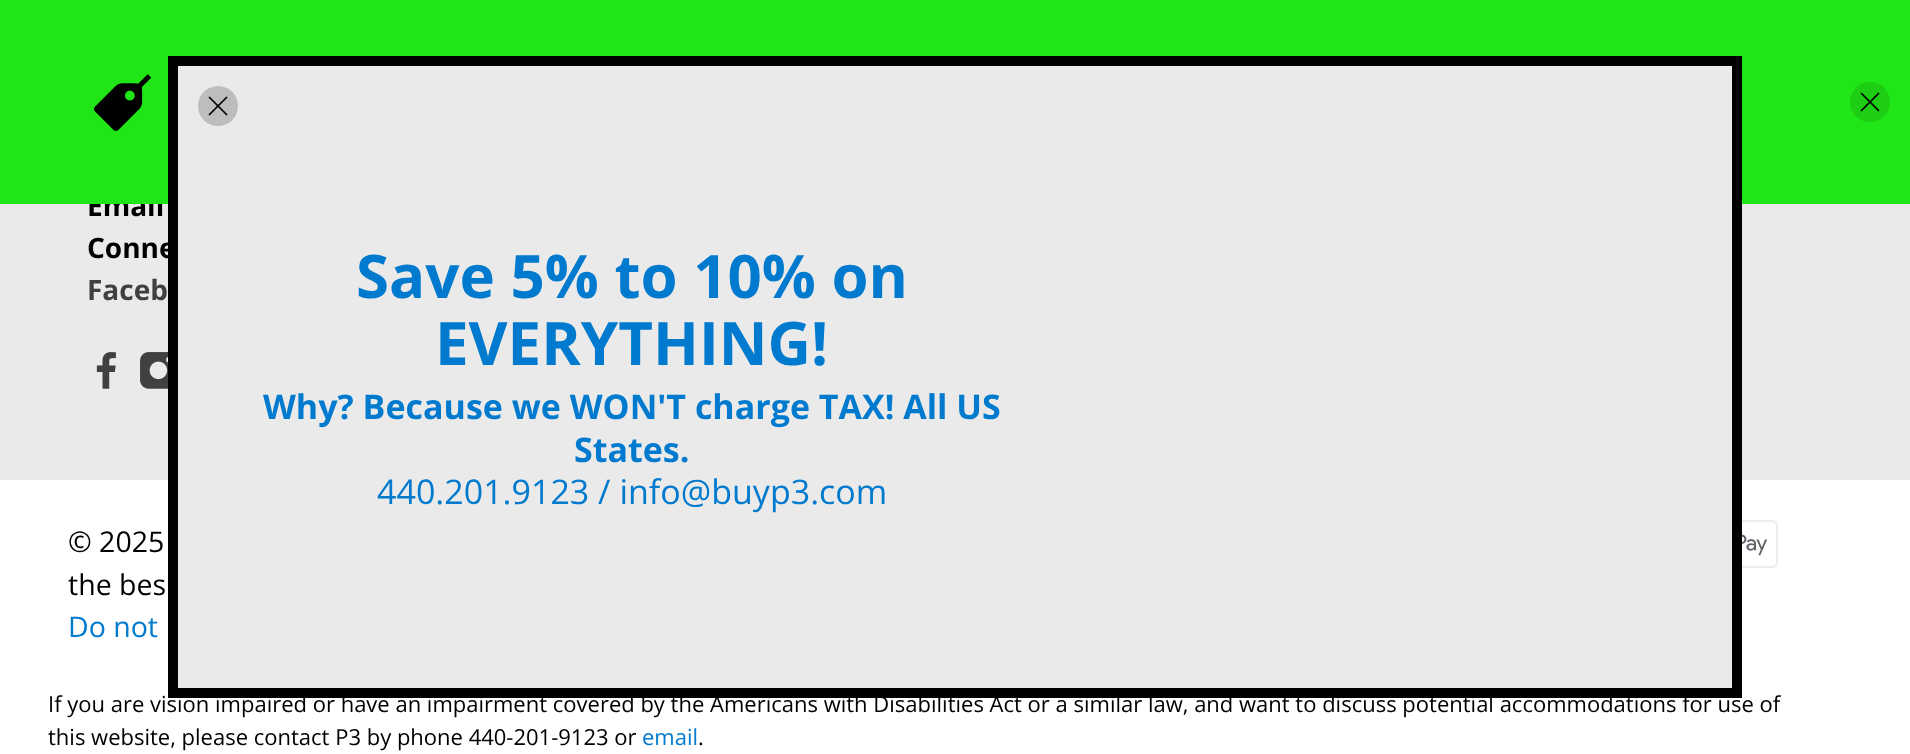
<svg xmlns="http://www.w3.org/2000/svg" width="1910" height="754">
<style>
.a{font:bold 28px Open Sans;fill:#000}
.b{font:bold 28px Open Sans;fill:#404040}
.c{font:28.5px Open Sans;fill:#000}
.d{font:28.5px Open Sans;fill:#007ace}
.e{font:22px Open Sans;fill:#000}
.f{font:22px Open Sans;fill:#007ace}
.g{font:bold 60px Open Sans;fill:#007ace}
.h{font:bold 34px Open Sans;fill:#007ace}
.i{font:34px Open Sans;fill:#007ace}
</style>
<rect width="100%" height="100%" fill="#fff"/>
<path fill="#eaeaea" d="M0 204h1910v276H0z"/>
<image href="3.png" x="96" y="352" width="20" height="37"/>
<image href="4.png" x="140" y="352" width="28" height="37"/>
<image href="5.png" x="1742" y="520" width="36" height="48"/>
<text class="a" x="87" y="216">Email</text>
<path fill="#20e516" d="M0 0h1910v204H0z"/>
<circle fill="#1dce14" cx="1870" cy="102" r="20"/>
<image href="2.png" x="1860" y="92" width="20" height="20"/>
<image href="1.png" x="94" y="74" width="58" height="57"/>
<text class="a" x="87" y="258">Conne</text>
<text class="b" x="87" y="300">Faceb</text>
<text class="c" x="68" y="552">© 2025</text>
<text class="c" x="68" y="595">the bes</text>
<text class="d" x="68" y="637">Do not</text>
<text class="e" x="48" y="712">If you are vision impaired or have an impairment covered by the Americans with Disabilities Act or a similar law, and want to discuss potential accommodations for use of</text>
<text class="e" x="48" y="745">this website, please contact P3 by phone 440-201-9123 or</text>
<text class="f" x="642" y="745">email</text>
<text class="e" x="698" y="745">.</text>
<path fill="#eaeaea" stroke="#000" stroke-width="10" d="M173 61h1564v632H173z"/>
<circle fill="#bdbdbd" cx="218" cy="106" r="20"/>
<image href="6.png" x="208" y="96" width="20" height="20"/>
<text class="g" x="356" y="298">Save 5% to 10% on</text>
<text class="g" x="435" y="365">EVERYTHING!</text>
<text class="h" x="263" y="419">Why? Because we WON'T charge TAX! All US</text>
<text class="h" x="574" y="462">States.</text>
<text class="i" x="377" y="504">440.201.9123 / info@buyp3.com</text>
</svg>
